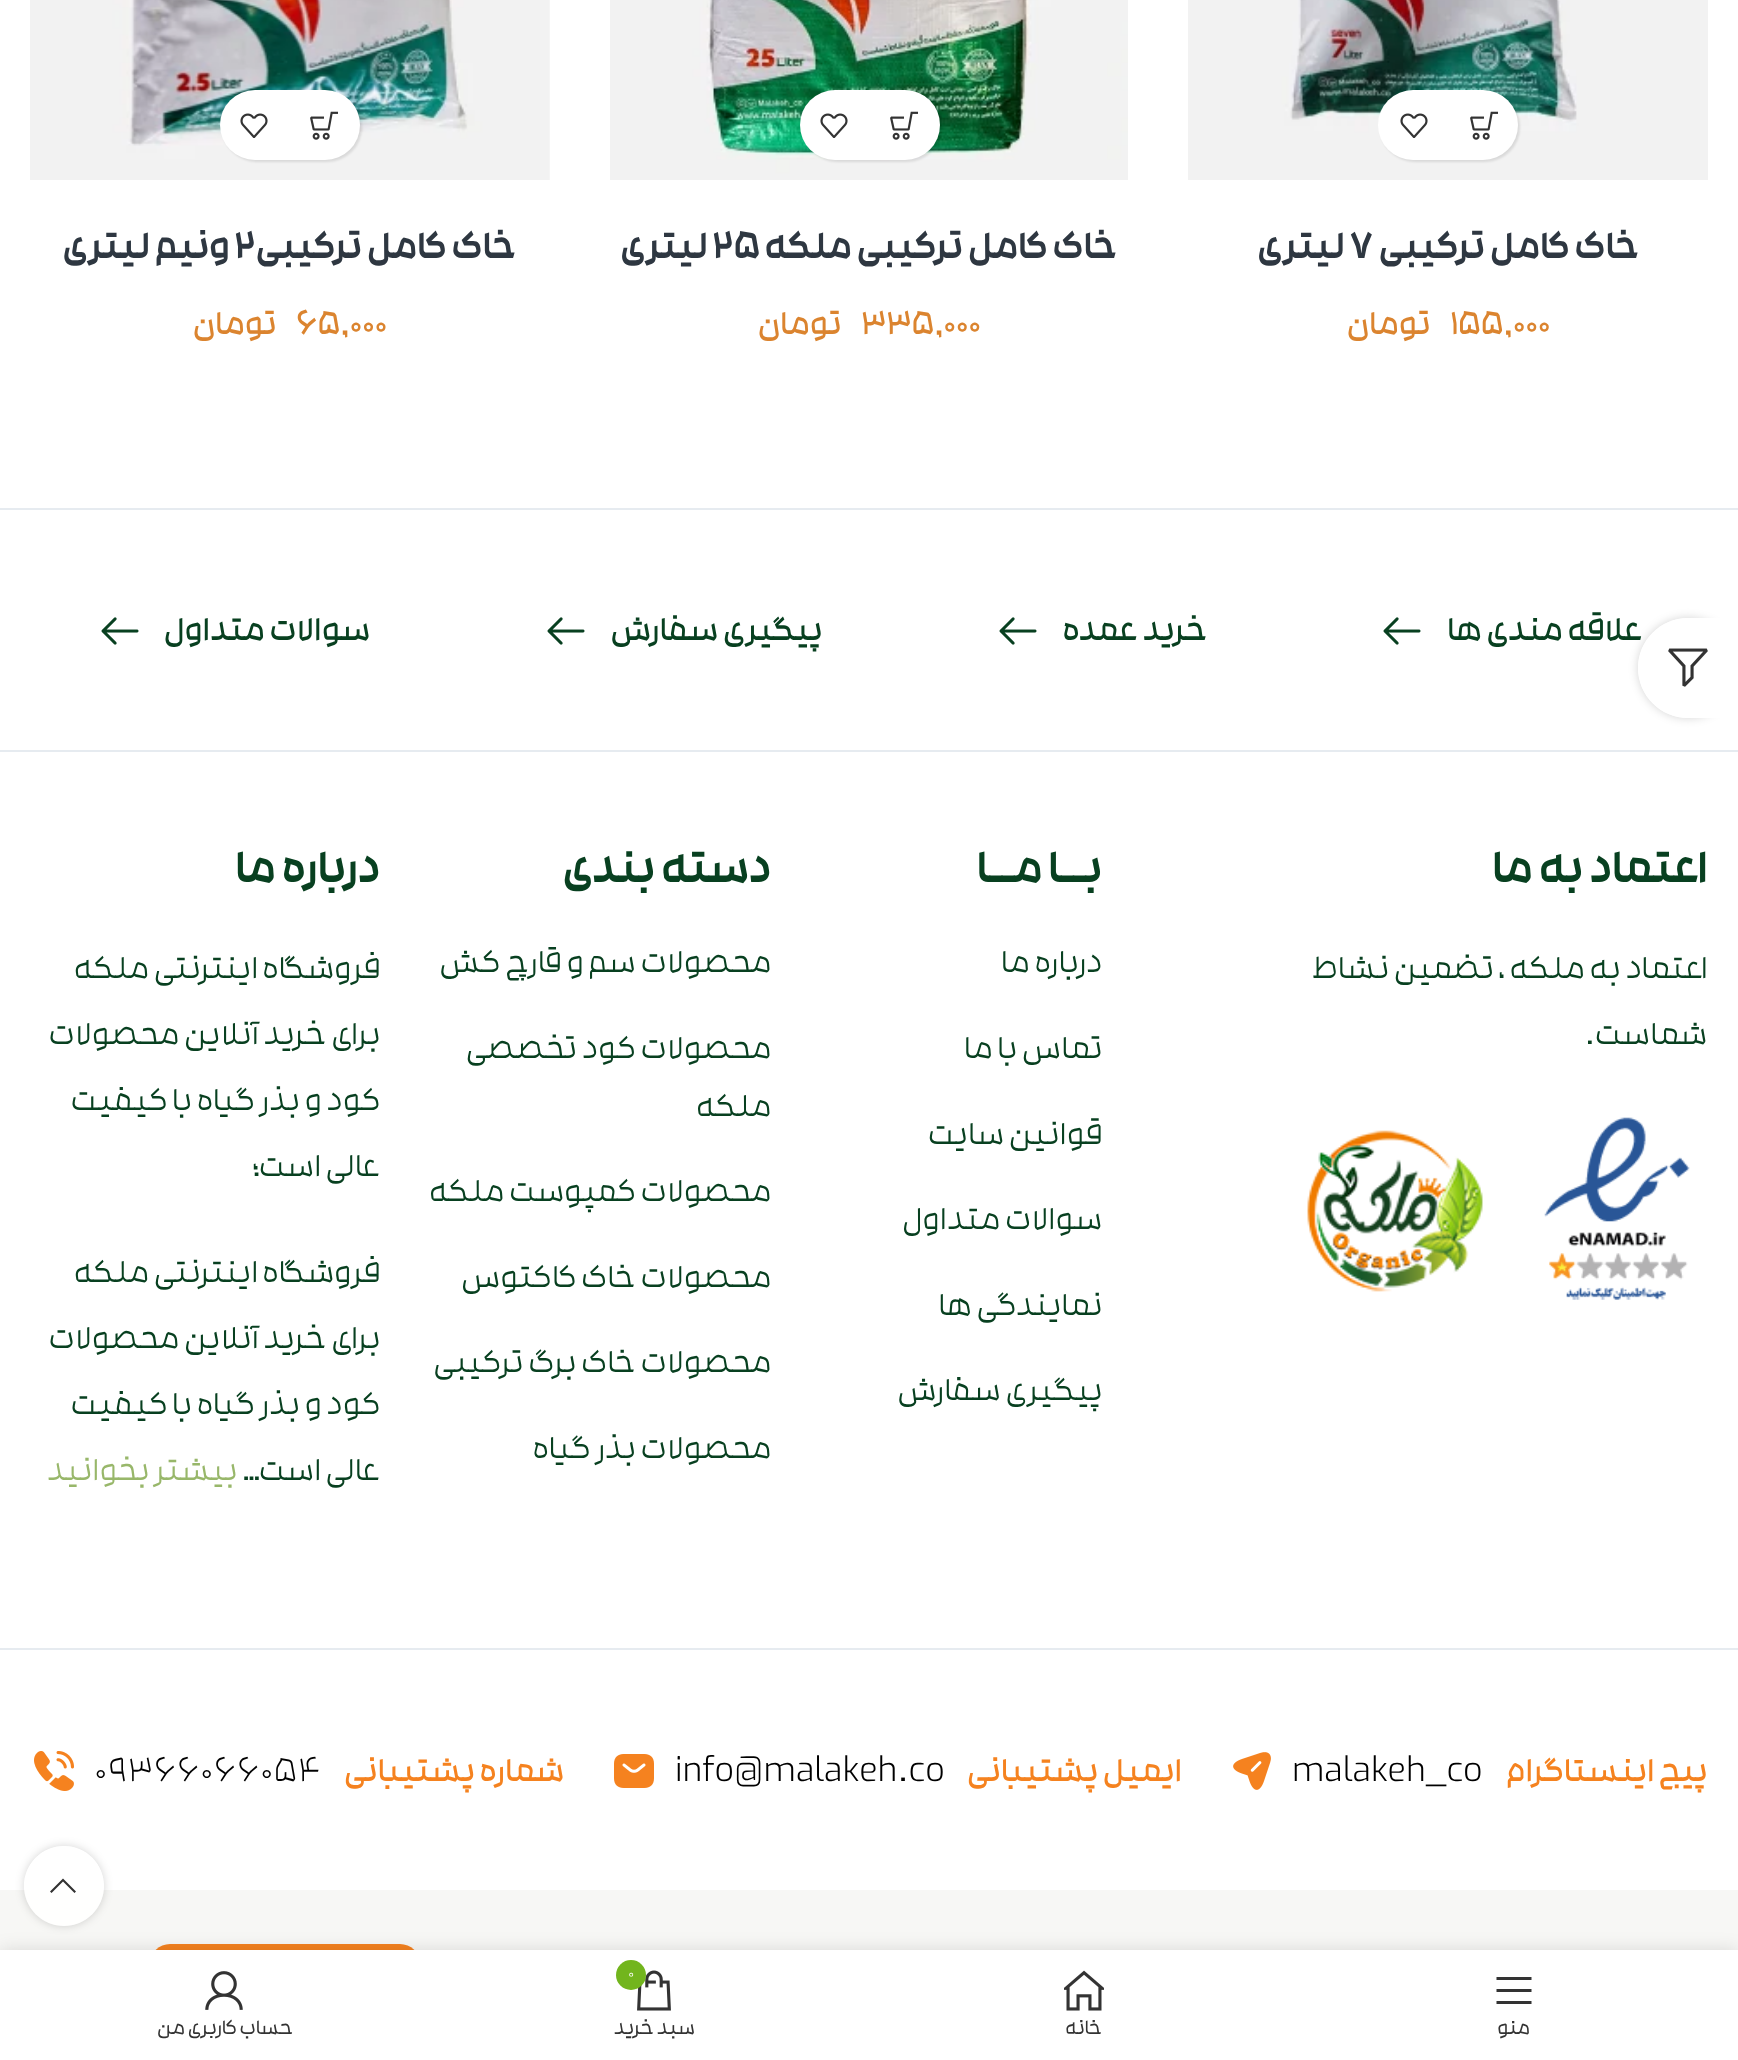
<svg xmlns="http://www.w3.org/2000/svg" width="1738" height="2060">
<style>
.a{font:bold 40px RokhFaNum;direction:rtl;fill:#2e3741}
.b{font:bold 40px RokhFaNum;fill:#2e3741}
.c{font:600 36px RokhFaNum;fill:#db842f}
.d{font:600 36px RokhFaNum;direction:rtl;fill:#db842f}
.e{font:600 36px RokhFaNum;direction:rtl;fill:#084020}
.f{font:bold 48px RokhFaNum;direction:rtl;fill:#084020}
.g{font:500 36px RokhFaNum;direction:rtl;fill:#084020}
.h{font:500 36px RokhFaNum;direction:rtl;fill:#98b76a}
.i{font:600 36px RokhFaNum;direction:rtl;fill:#f5821f}
.j{font:44px RokhFaNum;fill:#000}
.k{font:38px RokhFaNum;fill:#000}
.l{font:bold 22px 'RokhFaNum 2';direction:rtl;fill:#333}
.m{font:18px RokhFaNum;fill:#fff}
</style>
<defs>
<clipPath id="clip1"><path d="M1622 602h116v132h-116zm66 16h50v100h-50c-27.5 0-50-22.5-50-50c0-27.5 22.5-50 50-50z" clip-rule="evenodd"/></clipPath>
<clipPath id="clip2"><path d="M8 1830h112v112h-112zm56 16c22 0 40 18 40 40c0 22-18 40-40 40c-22 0-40-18-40-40c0-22 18-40 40-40z" clip-rule="evenodd"/></clipPath>
</defs>
<rect width="100%" height="100%" fill="#fff"/>
<image href="1.png" x="1188" y="0" width="520" height="180"/>
<rect fill="#0000001a" filter="blur(1px)" x="1380" y="92" width="140" height="70" rx="35"/>
<rect fill="#fff" x="1378" y="90" width="140" height="70" rx="35"/>
<image href="2.png" x="1470" y="111" width="28" height="29"/>
<image href="3.png" x="1400" y="113" width="28" height="25"/>
<image href="4.png" x="610" y="0" width="518" height="180"/>
<rect fill="#0000001a" filter="blur(1px)" x="802" y="92" width="140" height="70" rx="35"/>
<rect fill="#fff" x="800" y="90" width="140" height="70" rx="35"/>
<image href="2.png" x="890" y="111" width="28" height="29"/>
<image href="3.png" x="820" y="113" width="28" height="25"/>
<image href="5.png" x="30" y="0" width="520" height="180"/>
<rect fill="#0000001a" filter="blur(1px)" x="222" y="92" width="140" height="70" rx="35"/>
<rect fill="#fff" x="220" y="90" width="140" height="70" rx="35"/>
<image href="2.png" x="310" y="111" width="28" height="29"/>
<image href="3.png" x="240" y="113" width="28" height="25"/>
<path fill="#e6ebf0" d="M0 508h1738v2H0z"/>
<image href="6.png" x="1383" y="617" width="38" height="28"/>
<image href="6.png" x="999" y="617" width="38" height="28"/>
<image href="6.png" x="547" y="617" width="38" height="28"/>
<image href="6.png" x="101" y="617" width="38" height="28"/>
<path fill="#e6ebf0" d="M0 750h1738v2H0z"/>
<image href="7.png" x="1544" y="1117" width="146" height="183"/>
<image href="8.png" x="1307" y="1130" width="176" height="162"/>
<path fill="#e6ebf0" d="M0 1648h1738v2H0z"/>
<image href="9.png" x="1233" y="1752" width="38" height="38"/>
<image href="10.png" x="614" y="1754" width="40" height="34"/>
<image href="11.png" x="34" y="1751" width="40" height="40"/>
<path fill="#f7f7f5" d="M0 1890h1738v60H0z"/>
<rect fill="#f5821f" x="150" y="1944" width="270" height="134" rx="20"/>
<g clip-path="url(#clip1)">
<rect fill="#0000002b" filter="blur(5px)" x="1638" y="618" width="100" height="100" rx="50"/>
</g>
<g clip-path="url(#clip2)">
<rect fill="#0000002b" filter="blur(5px)" x="24" y="1846" width="80" height="80" rx="40"/>
</g>
<circle fill="#ffffffe6" cx="64" cy="1886" r="40"/>
<path fill="#333" d="M74.5 1893l1.5-1.5l-13-13l-13 13l1.5 1.5l11.5-11.5z"/>
<path fill="#0000001f" filter="blur(9px)" d="M0 1950h1738v110H0z"/>
<path fill="#fff" d="M0 1950h1738v110H0z"/>
<path fill="#333" d="M1496.5 1980h35v-3h-35zm0 12h35v-3h-35zm0 12h35v-3h-35z"/>
<image href="13.png" x="1064" y="1970" width="40" height="41"/>
<image href="14.png" x="637" y="1970" width="34" height="41"/>
<circle fill="#72b51d" cx="631" cy="1975" r="15"/>
<image href="15.png" x="205" y="1971" width="38" height="39"/>
<text class="a" x="1640" y="258">خاک کامل ترکیبی</text>
<text class="b" x="1349" y="258">7</text>
<text class="a" x="1345" y="258">لیتری</text>
<text class="c" x="1450" y="334">155,000</text>
<text class="d" x="1431" y="334">تومان</text>
<text class="a" x="1118" y="258">خاک کامل ترکیبی ملکه</text>
<text class="b" x="712" y="258">25</text>
<text class="a" x="708" y="258">لیتری</text>
<text class="c" x="861" y="334">335,000</text>
<text class="d" x="842" y="334">تومان</text>
<text class="a" x="517" y="258">خاک کامل ترکیبی</text>
<text class="b" x="234" y="258">2</text>
<text class="a" x="230" y="258">ونیم لیتری</text>
<text class="c" x="296" y="334">65,000</text>
<text class="d" x="277" y="334">تومان</text>
<text class="e" x="1643" y="640">علاقه مندی ها</text>
<text class="e" x="1208" y="640">خرید عمده</text>
<text class="e" x="823" y="640">پیگیری سفارش</text>
<text class="e" x="371" y="640">سوالات متداول</text>
<text class="f" x="1708" y="882">اعتماد به ما</text>
<text class="g" x="1708" y="978">اعتماد به ملکه ، تضمین نشاط</text>
<text class="g" x="1708" y="1044">شماست.</text>
<text class="f" x="1103" y="882">بــا مــا</text>
<text class="g" x="1103" y="972">درباره ما</text>
<text class="g" x="1103" y="1058">تماس با ما</text>
<text class="g" x="1103" y="1144">قوانین سایت</text>
<text class="g" x="1103" y="1229">سوالات متداول</text>
<text class="g" x="1103" y="1315">نمایندگی ها</text>
<text class="g" x="1103" y="1400">پیگیری سفارش</text>
<text class="f" x="772" y="882">دسته بندی</text>
<text class="g" x="772" y="972">محصولات سم و قارچ کش</text>
<text class="g" x="772" y="1058">محصولات کود تخصصی</text>
<text class="g" x="772" y="1116">ملکه</text>
<text class="g" x="772" y="1201">محصولات کمپوست ملکه</text>
<text class="g" x="772" y="1287">محصولات خاک کاکتوس</text>
<text class="g" x="772" y="1372">محصولات خاک برگ ترکیبی</text>
<text class="g" x="772" y="1458">محصولات بذر گیاه</text>
<text class="f" x="381" y="882">درباره ما</text>
<text class="g" x="381" y="978">فروشگاه اینترنتی ملکه</text>
<text class="g" x="381" y="1044">برای خرید آنلاین محصولات</text>
<text class="g" x="381" y="1110">کود و بذر گیاه با کیفیت</text>
<text class="g" x="381" y="1176">عالی است؛</text>
<text class="g" x="381" y="1282">فروشگاه اینترنتی ملکه</text>
<text class="g" x="381" y="1348">برای خرید آنلاین محصولات</text>
<text class="g" x="381" y="1414">کود و بذر گیاه با کیفیت</text>
<text class="g" x="381" y="1480">عالی است…</text>
<text class="h" x="238" y="1480">بیشتر بخوانید</text>
<text class="i" x="1708" y="1781">پیج اینستاگرام</text>
<text class="j" x="1292" y="1781">malakeh_co</text>
<text class="i" x="1182" y="1781">ایمیل پشتیبانی</text>
<text class="j" x="675" y="1781">info@malakeh.co</text>
<text class="i" x="565" y="1781">شماره پشتیبانی</text>
<text class="k" x="94" y="1781">09366066054</text>
<path fill="#ffffffe6" d="M1688 618h50v100h-50c-27.5 0-50-22.5-50-50c0-27.5 22.5-50 50-50z"/>
<image href="12.png" x="1668" y="648" width="40" height="39"/>
<text class="l" x="1530" y="2034">منو</text>
<text class="l" x="1102" y="2034">خانه</text>
<text class="m" x="628" y="1978">0</text>
<text class="l" x="695" y="2034">سبد خرید</text>
<text class="l" x="293" y="2034">حساب کاربری من</text>
</svg>
